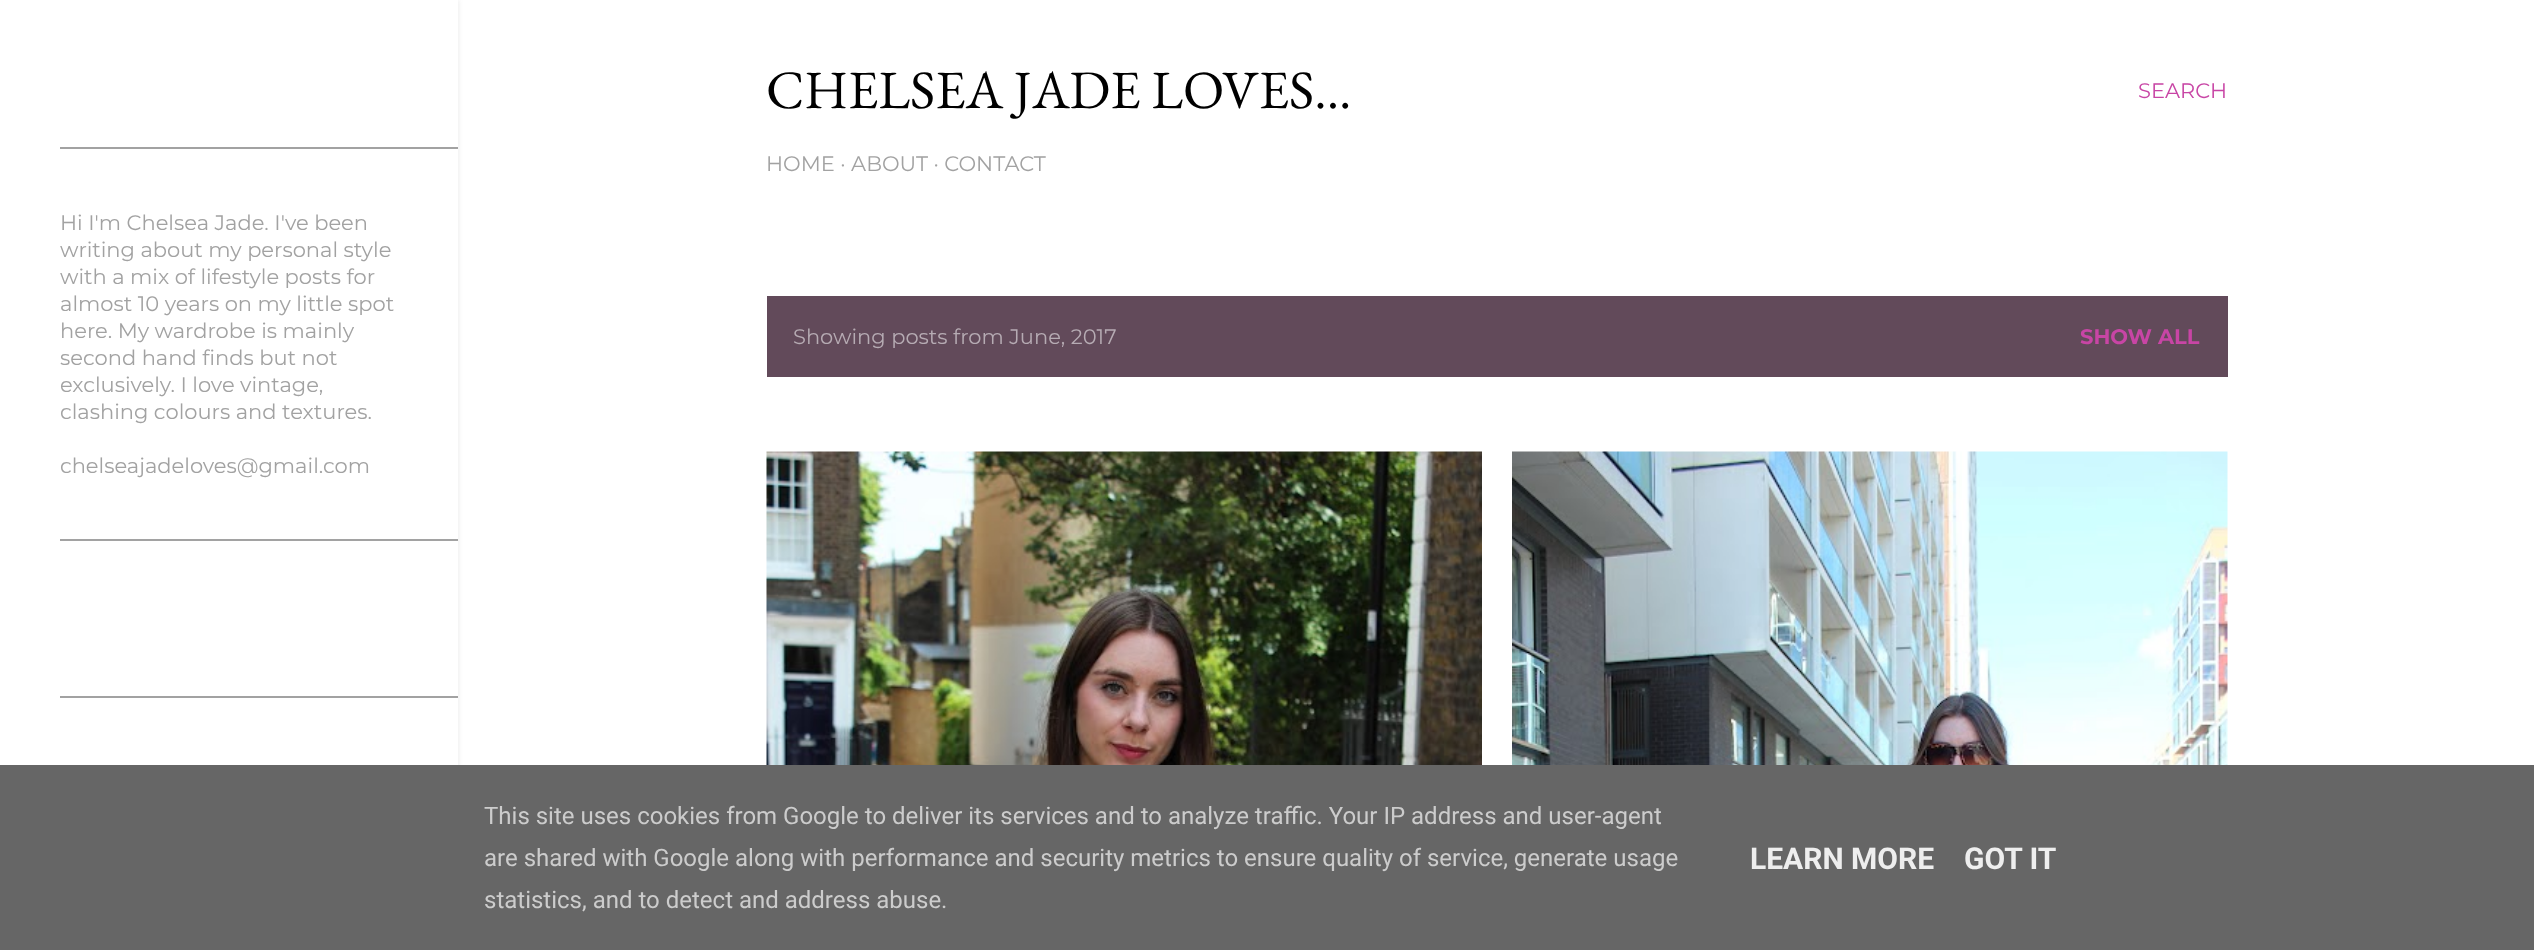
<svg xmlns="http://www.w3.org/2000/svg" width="2534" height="950">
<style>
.a{font:21px Montserrat;fill:#a2a2a2}
.b{font:54px EB Garamond;fill:#000}
.c{font:21px Montserrat;fill:#c845a5}
.d{font:21px Montserrat;fill:#b6abb3}
.e{font:bold 21px Montserrat;fill:#c845a5}
.f{font:24px Roboto;fill:#ccc}
.g{font:bold 30px Roboto;fill:#eee}
</style>
<rect width="100%" height="100%" fill="#fff"/>
<path fill="#5252521a" filter="blur(2px)" d="M2 0h457v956H2z"/>
<path fill="#fff" d="M0 0h458v765H0z"/>
<path fill="#a2a2a2" d="M60 147h398v2H60z"/>
<path fill="#a2a2a2" d="M60 539h398v2H60z"/>
<path fill="#a2a2a2" d="M60 696h398v2H60z"/>
<path fill="#624a5a" d="M767 296h1461v81H767z"/>
<image href="1.png" x="766" y="451" width="716" height="314"/>
<image href="2.png" x="1512" y="451" width="716" height="314"/>
<path fill="#666" d="M0 765h2534v185H0z"/>
<text class="a" x="60" y="230">Hi I'm Chelsea Jade. I've been</text>
<text class="a" x="60" y="257">writing about my personal style</text>
<text class="a" x="60" y="284">with a mix of lifestyle posts for</text>
<text class="a" x="60" y="311">almost 10 years on my little spot</text>
<text class="a" x="60" y="338">here. My wardrobe is mainly</text>
<text class="a" x="60" y="365">second hand finds but not</text>
<text class="a" x="60" y="392">exclusively. I love vintage,</text>
<text class="a" x="60" y="419">clashing colours and textures.</text>
<text class="a" x="60" y="473">chelseajadeloves@gmail.com</text>
<text class="b" x="766" y="108">CHELSEA JADE LOVES...</text>
<text class="a" x="766" y="171">HOME · ABOUT · CONTACT</text>
<text class="c" x="2138" y="98">SEARCH</text>
<text class="d" x="793" y="344">Showing posts from June, 2017</text>
<text class="e" x="2080" y="344">SHOW ALL</text>
<text class="f" x="484" y="824">This site uses cookies from Google to deliver its services and to analyze traffic. Your IP address and user-agent</text>
<text class="f" x="484" y="866">are shared with Google along with performance and security metrics to ensure quality of service, generate usage</text>
<text class="f" x="484" y="908">statistics, and to detect and address abuse.</text>
<text class="g" x="1750" y="869">LEARN MORE</text>
<text class="g" x="1964" y="869">GOT IT</text>
</svg>
